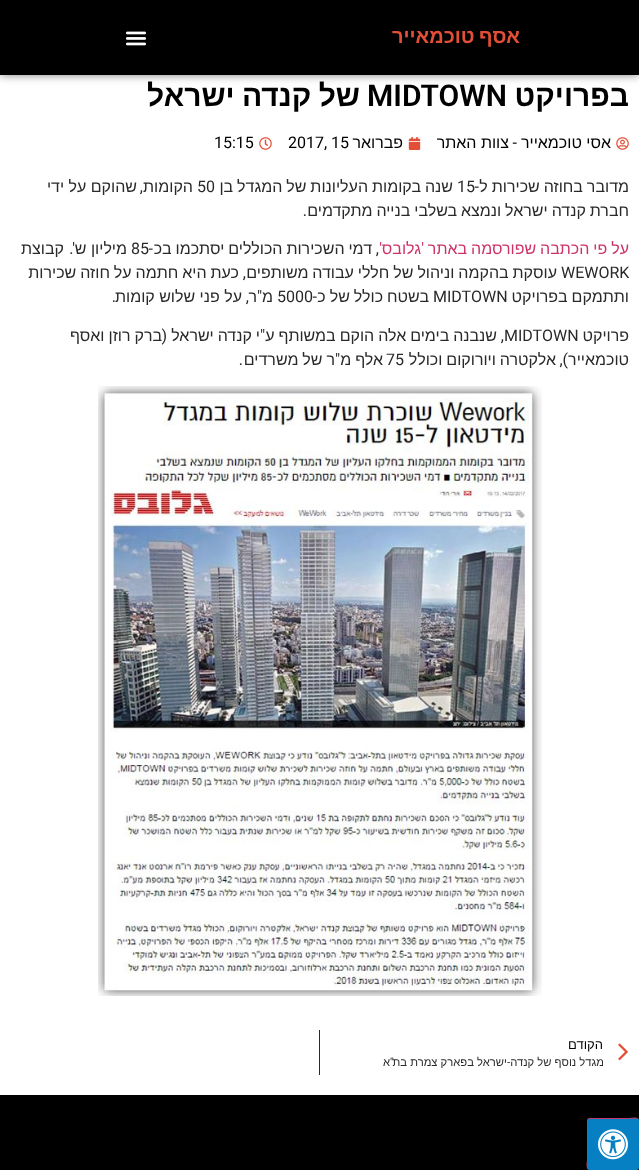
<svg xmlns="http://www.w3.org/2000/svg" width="639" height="1170">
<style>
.a{font:bold 20px Liberation Sans;direction:rtl;fill:#e34f36}
.b{font:bold 30px Liberation Sans;direction:rtl;fill:#000}
.c{font:600 30px Roboto;fill:#000}
.d{font:16px Liberation Sans;direction:rtl;fill:#000}
.e{font:16px Roboto;direction:rtl;fill:#000}
.f{font:16px Roboto;fill:#000}
.g{font:16px Liberation Sans;direction:rtl;fill:#292929}
.h{font:16px Roboto;direction:rtl;fill:#292929}
.i{font:16px Roboto;fill:#292929}
.j{font:16px Liberation Sans;direction:rtl;fill:#c36}
.k{font:16px Roboto;direction:rtl;fill:#c36}
.l{font:13px Liberation Sans;direction:rtl;fill:#000}
.m{font:11.25px Liberation Sans;direction:rtl;fill:#292929}
.n{font:11.25px Roboto Slab;direction:rtl;fill:#292929}
</style>
<defs>
<clipPath id="clip1"><path d="M383 1054h220v17H383z"/></clipPath>
</defs>
<rect width="100%" height="100%" fill="#fff"/>
<path fill="#00000080" filter="blur(5px)" d="M0 0h639v75H0z"/>
<path fill="#000" d="M0 0h639v75H0z"/>
<image href="1.png" x="125" y="31" width="22" height="15"/>
<image href="2.png" x="616" y="137" width="13" height="13"/>
<image href="3.png" x="408" y="137" width="13" height="13"/>
<image href="4.png" x="259" y="137" width="13" height="13"/>
<image href="5.png" x="98" y="386" width="444" height="610"/>
<image href="6.png" x="618" y="1043" width="10" height="18"/>
<path fill="#292929" d="M319 1030h1v45H319z"/>
<path fill="#000" d="M0 1095h639v75H0z"/>
<rect fill="#0780c3" x="587" y="1118" width="52" height="52" rx="3"/>
<path fill="none" stroke="#0780c3" d="M638 1119c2 2.5 .5 6.5 .5 9.5v31c0 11.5 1.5 10-10 10h-31c-3 0-7 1.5-9.5-.5"/>
<path fill="none" stroke="#c36" d="M588 1169c-2-2.5-.5-6.5-.5-9.5v-31c0-11.5-1.5-10 10-10h31c3 0 7-1.5 9.5 .5"/>
<image href="7.png" x="598" y="1129" width="30" height="31"/>
<text class="a" x="520" y="43" word-spacing="-1">אסף טוכמאייר</text>
<text class="b" x="629" y="106">בפרויקט</text>
<text class="c" x="367" y="106">MIDTOWN</text>
<text class="b" x="360" y="106" word-spacing="-1">של קנדה ישראל</text>
<text class="d" x="611" y="148">אסי טוכמאייר</text>
<text class="e" x="517" y="148">-</text>
<text class="d" x="509" y="148">צוות האתר</text>
<text class="d" x="403" y="148">פברואר</text>
<text class="f" x="288" y="148">2017, 15</text>
<text class="f" x="214" y="148">15:15</text>
<text class="g" x="629" y="192" word-spacing="-0.5">מדובר בחוזה שכירות ל</text>
<text class="h" x="479" y="192">-</text>
<text class="i" x="457" y="192">15</text>
<text class="g" x="453" y="192" word-spacing="-0.5">שנה בקומות העליונות של המגדל בן</text>
<text class="i" x="197" y="192">50</text>
<text class="g" x="193" y="192">הקומות</text>
<text class="g" x="137" y="192">שהוקם על ידי</text>
<text class="h" x="143" y="192">,</text>
<text class="g" x="629" y="216" word-spacing="-0.5">חברת קנדה ישראל ונמצא בשלבי בנייה מתקדמים</text>
<text class="h" x="307" y="216">.</text>
<text class="j" x="629" y="254" word-spacing="-0.5">על פי הכתבה שפורסמה באתר</text>
<text class="k" x="424" y="254">'</text>
<text class="j" x="421" y="254">גלובס</text>
<text class="k" x="382" y="254">'</text>
<text class="g" x="372" y="254" word-spacing="-0.5">דמי השכירות הכוללים יסתכמו בכ</text>
<text class="h" x="153" y="254">-</text>
<text class="i" x="131" y="254">85</text>
<text class="g" x="127" y="254">מיליון ש</text>
<text class="h" x="75" y="254">'.</text>
<text class="g" x="64" y="254">קבוצת</text>
<text class="h" x="379" y="254">,</text>
<text class="i" x="561" y="278">WEWORK</text>
<text class="g" x="557" y="278" word-spacing="-0.5">עוסקת בהקמה וניהול של חללי עבודה משותפים</text>
<text class="h" x="246" y="278">,</text>
<text class="g" x="239" y="278" word-spacing="-0.5">כעת היא חתמה על חוזה שכירות</text>
<text class="g" x="629" y="302" word-spacing="-0.5">ותתמקם בפרויקט</text>
<text class="i" x="433" y="302">MIDTOWN</text>
<text class="h" x="317" y="302">-</text>
<text class="g" x="429" y="302" word-spacing="-0.5">בשטח כולל של כ</text>
<text class="i" x="277" y="302">5000</text>
<text class="g" x="273" y="302">מ</text>
<text class="h" x="262" y="302">"</text>
<text class="g" x="257" y="302">ר</text>
<text class="g" x="242" y="302">על פני שלוש קומות</text>
<text class="h" x="249" y="302">,</text>
<text class="h" x="116" y="302">.</text>
<text class="g" x="629" y="341">פרויקט</text>
<text class="i" x="504" y="341">MIDTOWN</text>
<text class="h" x="504" y="341">,</text>
<text class="g" x="497" y="341" word-spacing="-0.5">שנבנה בימים אלה הוקם במשותף ע</text>
<text class="h" x="265" y="341">"</text>
<text class="g" x="260" y="341" word-spacing="-0.5">י קנדה ישראל</text>
<text class="h" x="167" y="341">(</text>
<text class="g" x="162" y="341" word-spacing="-0.5">ברק רוזן ואסף</text>
<text class="g" x="629" y="365">טוכמאייר</text>
<text class="h" x="568" y="365">),</text>
<text class="g" x="556" y="365" word-spacing="-0.5">אלקטרה ויורוקום וכולל</text>
<text class="i" x="386" y="365">75</text>
<text class="g" x="383" y="365" word-spacing="-0.5">אלף מ</text>
<text class="h" x="340" y="365">"</text>
<text class="g" x="335" y="365" word-spacing="-0.5">ר של משרדים</text>
<text class="h" x="243" y="365">.</text>
<text class="l" x="603" y="1049">הקודם</text>
<g clip-path="url(#clip1)">
<text class="m" x="604" y="1066">מגדל נוסף של קנדה</text>
</g>
<text class="n" x="511" y="1066">-</text>
<text class="m" x="507" y="1066">ישראל בפארק צמרת בת</text>
<text class="n" x="394" y="1066">"</text>
<text class="m" x="390" y="1066">א</text>
</svg>
